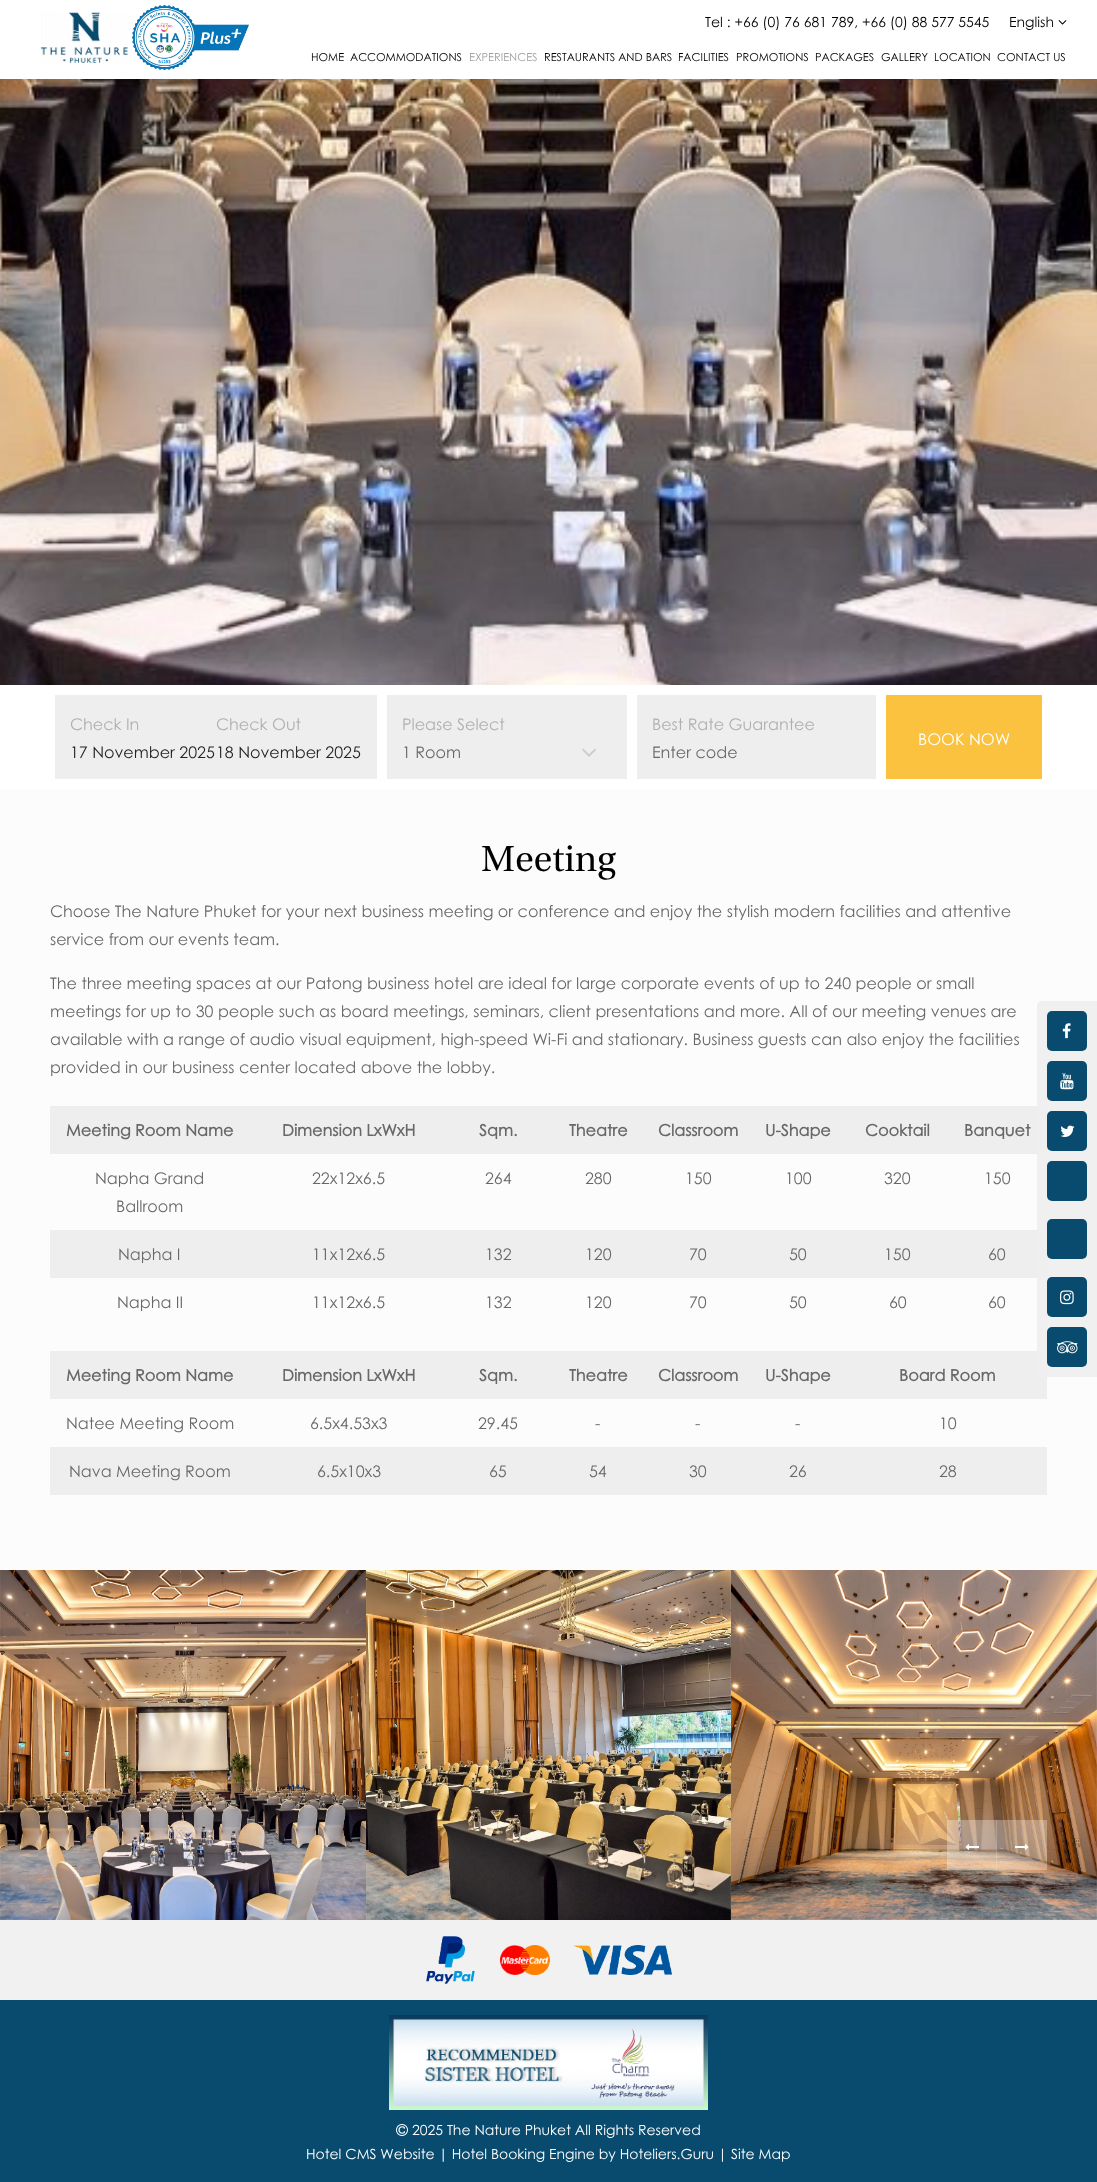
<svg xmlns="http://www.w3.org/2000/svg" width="1097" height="2182">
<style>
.a{font:14px Century Gothic;fill:#000}
.b{font:11px Century Gothic;fill:#000}
.c{font:11px Century Gothic;fill:#a0a0a0}
.d{font:16px Century Gothic;fill:#afafaf}
.e{font:16px Century Gothic;fill:#242424}
.f{font:16px Century Gothic;fill:#686868}
.g{font:16px Century Gothic;fill:#fff}
.h{font:36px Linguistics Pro;fill:#000}
.i{font:bold 16px Century Gothic;fill:#686868}
.j{font:14px Century Gothic;fill:#fff}
</style>
<rect width="100%" height="100%" fill="#fdfcfc"/>
<image href="4.png" x="0" y="79" width="1097" height="606"/>
<path fill="#00000017" filter="blur(5px)" d="M0 0h1097v79H0z"/>
<path fill="#fff" d="M0 0h1097v79H0z"/>
<image href="1.png" x="41" y="12" width="87" height="51"/>
<image href="2.png" x="132" y="5" width="117" height="65"/>
<image href="3.png" x="1058" y="20" width="9" height="5"/>
<path fill="#fff" d="M0 685h1097v104H0z"/>
<path fill="#eee" d="M55 695h322v84H55z"/>
<path fill="#eee" d="M387 695h240v84H387z"/>
<image href="5.png" x="582" y="748" width="14" height="9"/>
<path fill="#eee" d="M637 695h239v84H637z"/>
<path fill="#fbc23f" d="M886 695h156v84H886z"/>
<path fill="#eee" d="M50 1106h997v48H50z"/>
<path fill="#eee" d="M50 1230h997v48H50z"/>
<path fill="#eee" d="M50 1351h997v48H50z"/>
<path fill="#eee" d="M50 1447h997v48H50z"/>
<path fill="#eeeeeee6" d="M1042 1001h55v376h-55c-3 0-5-2-5-5v-366c0-3 2-5 5-5z"/>
<rect fill="#084b6e" x="1047" y="1011" width="40" height="40" rx="5"/>
<image href="6.png" x="1062" y="1023" width="9" height="16"/>
<rect fill="#084b6e" x="1047" y="1061" width="40" height="40" rx="5"/>
<image href="7.png" x="1060" y="1073" width="14" height="17"/>
<rect fill="#084b6e" x="1047" y="1111" width="40" height="40" rx="5"/>
<image href="8.png" x="1060" y="1125" width="15" height="12"/>
<rect fill="#084b6e" x="1047" y="1161" width="40" height="40" rx="5"/>
<rect fill="#084b6e" x="1047" y="1219" width="40" height="40" rx="5"/>
<rect fill="#084b6e" x="1047" y="1277" width="40" height="40" rx="5"/>
<image href="9.png" x="1060" y="1290" width="14" height="15"/>
<rect fill="#084b6e" x="1047" y="1327" width="40" height="40" rx="5"/>
<image href="10.png" x="1057" y="1341" width="21" height="13"/>
<image href="11.png" x="0" y="1570" width="366" height="350"/>
<image href="12.png" x="366" y="1570" width="365" height="350"/>
<image href="13.png" x="731" y="1570" width="366" height="350"/>
<path fill="#ffffff4d" d="M947 1820h50v50H947z"/>
<path fill="#ffffff33" d="M996 1820h1v50H996z"/>
<image href="14.png" x="965" y="1844" width="14" height="6"/>
<path fill="#ffffff4d" d="M997 1820h50v50H997z"/>
<image href="15.png" x="1015" y="1844" width="14" height="6"/>
<path fill="#f1f1f1" d="M0 1920h1097v80H0z"/>
<image href="16.png" x="426" y="1936" width="49" height="48"/>
<image href="17.png" x="500" y="1945" width="50" height="30"/>
<image href="18.png" x="574" y="1945" width="98" height="30"/>
<path fill="#084b6e" d="M0 2000h1097v182H0z"/>
<image href="19.png" x="389" y="2015" width="319" height="95"/>
<image href="20.png" x="396" y="2124" width="12" height="12"/>
<text class="a" x="705" y="27">Tel : +66 (0) 76 681 789, +66 (0) 88 577 5545</text>
<text class="a" x="1009" y="27">English</text>
<text class="b" x="311" y="61">HOME</text>
<text class="b" x="350" y="61">ACCOMMODATIONS</text>
<text class="c" x="469" y="61">EXPERIENCES</text>
<text class="b" x="544" y="61">RESTAURANTS AND BARS</text>
<text class="b" x="678" y="61">FACILITIES</text>
<text class="b" x="736" y="61">PROMOTIONS</text>
<text class="b" x="815" y="61">PACKAGES</text>
<text class="b" x="881" y="61">GALLERY</text>
<text class="b" x="934" y="61">LOCATION</text>
<text class="b" x="997" y="61">CONTACT US</text>
<text class="d" x="70" y="730">Check In</text>
<text class="e" x="70" y="758">17 November 2025</text>
<text class="d" x="216" y="730">Check Out</text>
<text class="e" x="216" y="758">18 November 2025</text>
<text class="d" x="402" y="730">Please Select</text>
<text class="f" x="402" y="758">1 Room</text>
<text class="d" x="652" y="730">Best Rate Guarantee</text>
<text class="f" x="652" y="758">Enter code</text>
<text class="g" x="918" y="745">BOOK NOW</text>
<text class="h" x="481" y="871">Meeting</text>
<text class="f" x="50" y="917">Choose The Nature Phuket for your next business meeting or conference and enjoy the stylish modern facilities and attentive</text>
<text class="f" x="50" y="945">service from our events team.</text>
<text class="f" x="50" y="989">The three meeting spaces at our Patong business hotel are ideal for large corporate events of up to 240 people or small</text>
<text class="f" x="50" y="1017">meetings for up to 30 people such as board meetings, seminars, client presentations and more. All of our meeting venues are</text>
<text class="f" x="50" y="1045">available with a range of audio visual equipment, high-speed Wi-Fi and stationary. Business guests can also enjoy the facilities</text>
<text class="f" x="50" y="1073">provided in our business center located above the lobby.</text>
<text class="i" x="66" y="1136">Meeting Room Name</text>
<text class="i" x="282" y="1136">Dimension LxWxH</text>
<text class="i" x="479" y="1136">Sqm.</text>
<text class="i" x="569" y="1136">Theatre</text>
<text class="i" x="658" y="1136">Classroom</text>
<text class="i" x="765" y="1136">U-Shape</text>
<text class="i" x="865" y="1136">Cooktail</text>
<text class="i" x="964" y="1136">Banquet</text>
<text class="f" x="95" y="1184">Napha Grand</text>
<text class="f" x="116" y="1212">Ballroom</text>
<text class="f" x="312" y="1184">22x12x6.5</text>
<text class="f" x="485" y="1184">264</text>
<text class="f" x="585" y="1184">280</text>
<text class="f" x="685" y="1184">150</text>
<text class="f" x="785" y="1184">100</text>
<text class="f" x="884" y="1184">320</text>
<text class="f" x="984" y="1184">150</text>
<text class="f" x="118" y="1260">Napha I</text>
<text class="f" x="312" y="1260">11x12x6.5</text>
<text class="f" x="485" y="1260">132</text>
<text class="f" x="585" y="1260">120</text>
<text class="f" x="689" y="1260">70</text>
<text class="f" x="789" y="1260">50</text>
<text class="f" x="884" y="1260">150</text>
<text class="f" x="988" y="1260">60</text>
<text class="f" x="117" y="1308">Napha II</text>
<text class="f" x="312" y="1308">11x12x6.5</text>
<text class="f" x="485" y="1308">132</text>
<text class="f" x="585" y="1308">120</text>
<text class="f" x="689" y="1308">70</text>
<text class="f" x="789" y="1308">50</text>
<text class="f" x="889" y="1308">60</text>
<text class="f" x="988" y="1308">60</text>
<text class="i" x="66" y="1381">Meeting Room Name</text>
<text class="i" x="282" y="1381">Dimension LxWxH</text>
<text class="i" x="479" y="1381">Sqm.</text>
<text class="i" x="569" y="1381">Theatre</text>
<text class="i" x="658" y="1381">Classroom</text>
<text class="i" x="765" y="1381">U-Shape</text>
<text class="i" x="899" y="1381">Board Room</text>
<text class="f" x="66" y="1429">Natee Meeting Room</text>
<text class="f" x="310" y="1429">6.5x4.53x3</text>
<text class="f" x="478" y="1429">29.45</text>
<text class="f" x="595" y="1429">-</text>
<text class="f" x="695" y="1429">-</text>
<text class="f" x="795" y="1429">-</text>
<text class="f" x="939" y="1429">10</text>
<text class="f" x="69" y="1477">Nava Meeting Room</text>
<text class="f" x="317" y="1477">6.5x10x3</text>
<text class="f" x="489" y="1477">65</text>
<text class="f" x="589" y="1477">54</text>
<text class="f" x="689" y="1477">30</text>
<text class="f" x="789" y="1477">26</text>
<text class="f" x="939" y="1477">28</text>
<text class="j" x="412" y="2135">2025 The Nature Phuket All Rights Reserved</text>
<text class="j" x="306" y="2159">Hotel CMS Website | Hotel Booking Engine by Hoteliers.Guru | Site Map</text>
</svg>
